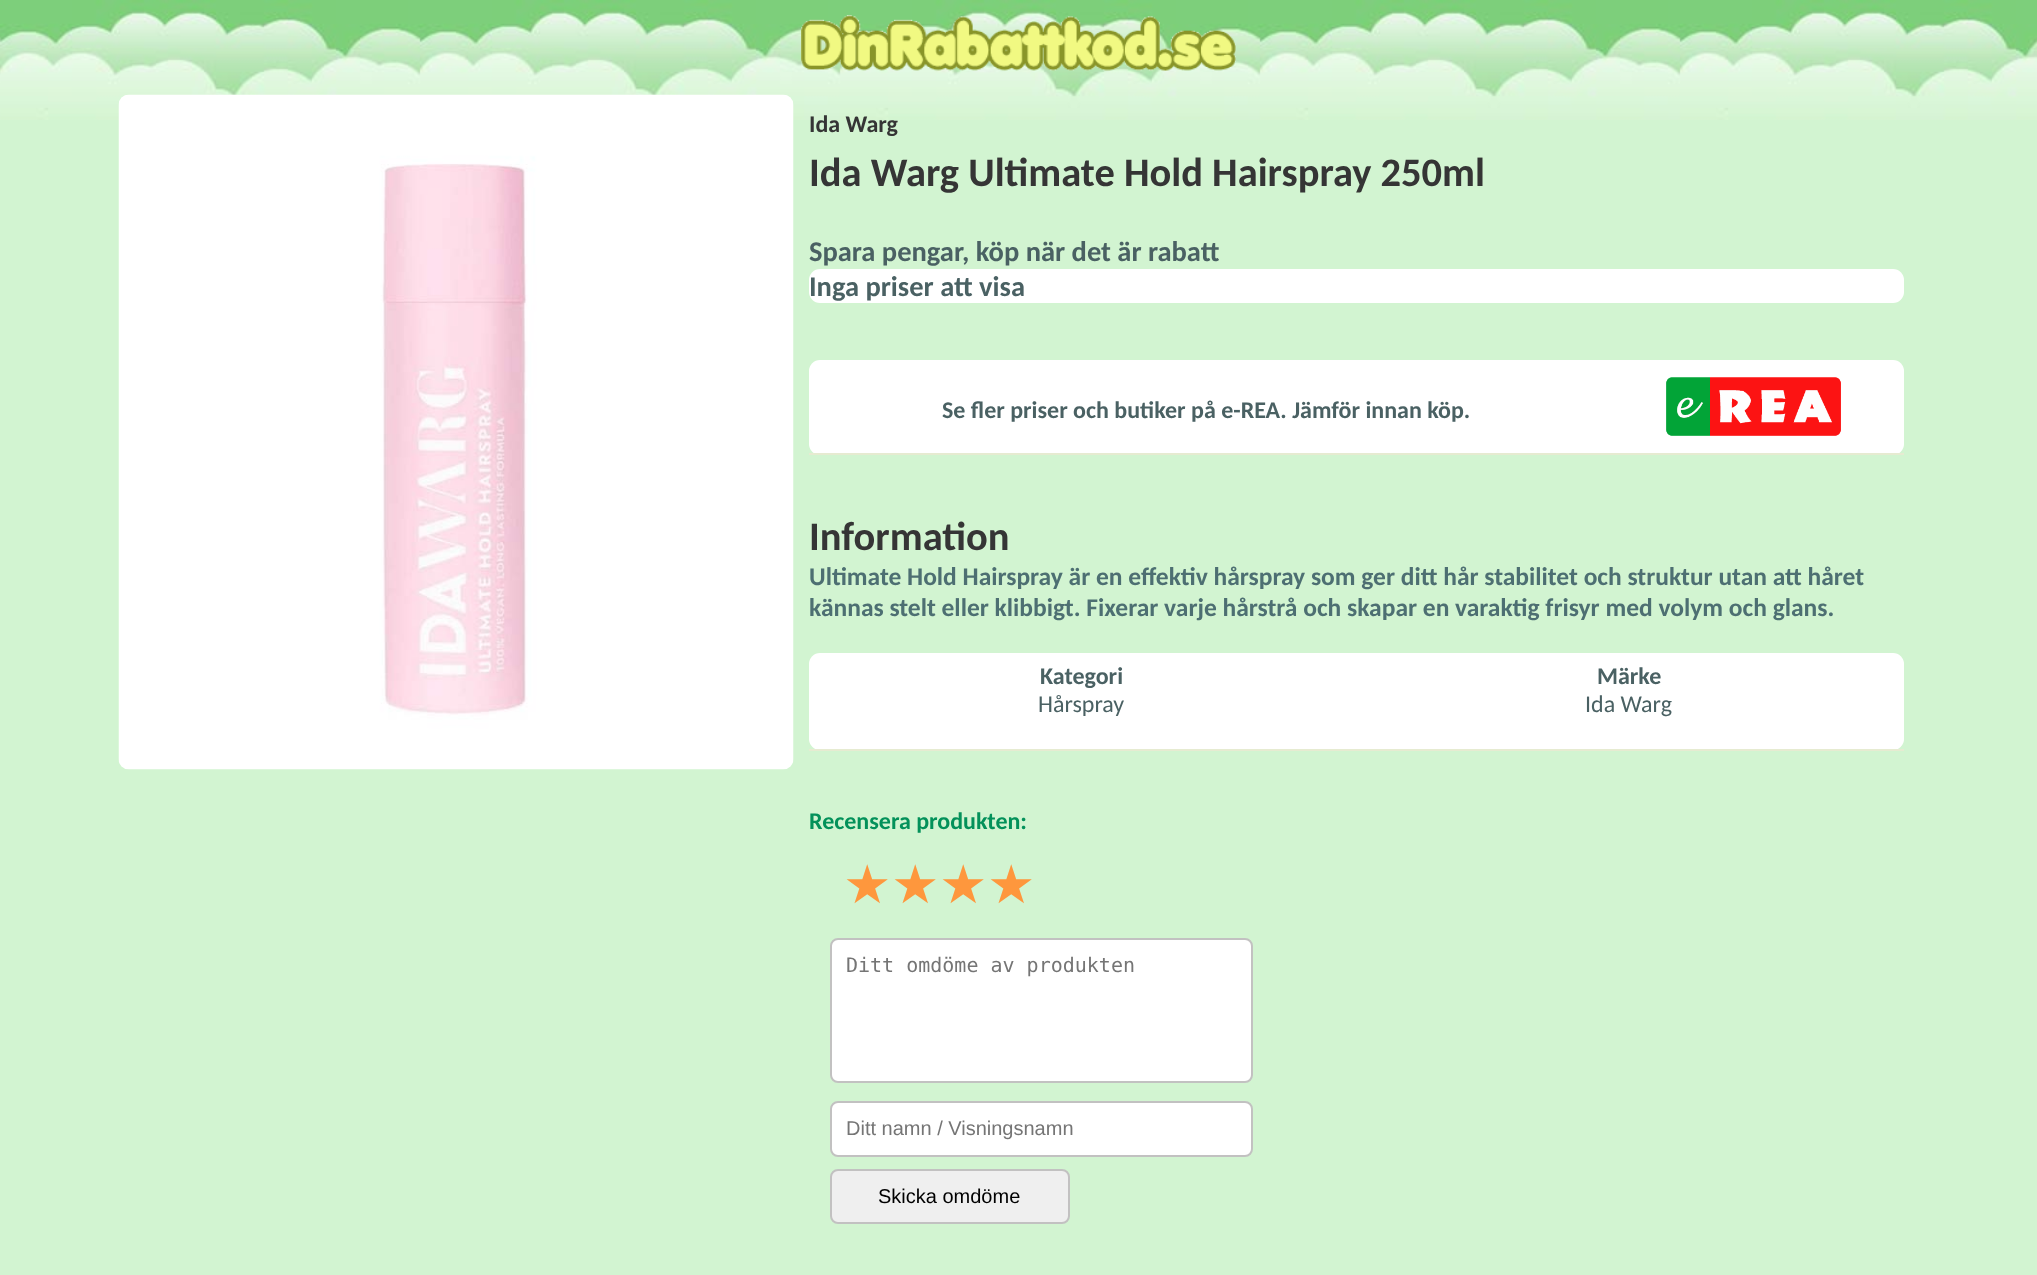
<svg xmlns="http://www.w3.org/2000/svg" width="2037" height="1275">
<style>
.a{font:bold 24px Carlito;fill:#353535}
.b{font:bold 40.5px Carlito;fill:#353535}
.c{font:bold 28.5px Carlito;fill:#4a6163}
.d{font:bold 24px Carlito;fill:#4a6163}
.e{font:bold 25.5px Carlito;fill:#4d6f72}
.f{font:24px Carlito;fill:#4a6163}
.g{font:bold 24px Carlito;fill:#03915a}
.h{font:bold 48px DejaVu Sans;fill:#fe973d}
.i{font:20px DejaVu Sans Mono;fill:#757575}
.j{font:20px Liberation Sans;fill:#757575}
.k{font:20px Liberation Sans;fill:#000}
</style>
<rect width="100%" height="100%" fill="#d2f4d1"/>
<image href="1.png" x="0" y="0" width="2037" height="120"/>
<image href="2.png" x="801" y="15" width="435" height="56"/>
<image href="3.png" x="118" y="94" width="676" height="676"/>
<rect fill="#fff" x="809" y="269" width="1095" height="34" rx="11"/>
<rect fill="#fff" x="809" y="360" width="1095" height="95" rx="11"/>
<path fill="#e6ebd1" d="M809 453h1095v2H809z"/>
<image href="4.png" x="1666" y="377" width="175" height="59"/>
<rect fill="#fff" x="809" y="653" width="1095" height="97" rx="11"/>
<path fill="#e6ebd1" d="M809 749h1095v2H809z"/>
<rect fill="#fff" stroke="#c2c1c1" stroke-width="2" x="831" y="939" width="421" height="143" rx="7"/>
<rect fill="#fff" stroke="#c2c1c1" stroke-width="2" x="831" y="1102" width="421" height="54" rx="7"/>
<rect fill="#efefef" stroke="#c2c1c1" stroke-width="2" x="831" y="1170" width="238" height="53" rx="7"/>
<text class="a" x="809" y="132">Ida Warg</text>
<text class="b" x="809" y="186">Ida Warg Ultimate Hold Hairspray 250ml</text>
<text class="c" x="809" y="261">Spara pengar, köp när det är rabatt</text>
<text class="c" x="809" y="296">Inga priser att visa</text>
<text class="d" x="942" y="418">Se fler priser och butiker på e-REA. Jämför innan köp.</text>
<text class="b" x="809" y="550">Information</text>
<text class="e" x="809" y="585">Ultimate Hold Hairspray är en effektiv hårspray som ger ditt hår stabilitet och struktur utan att håret</text>
<text class="e" x="809" y="616">kännas stelt eller klibbigt. Fixerar varje hårstrå och skapar en varaktig frisyr med volym och glans.</text>
<text class="d" x="1040" y="684">Kategori</text>
<text class="f" x="1038" y="712">Hårspray</text>
<text class="d" x="1597" y="684">Märke</text>
<text class="f" x="1585" y="712">Ida Warg</text>
<text class="g" x="809" y="829">Recensera produkten:</text>
<text class="h" x="845" y="902">★</text>
<text class="h" x="893" y="902">★</text>
<text class="h" x="941" y="902">★</text>
<text class="h" x="989" y="902">★</text>
<text class="i" x="846" y="972">Ditt omdöme av produkten</text>
<text class="j" x="846" y="1135">Ditt namn / Visningsnamn</text>
<text class="k" x="878" y="1203">Skicka omdöme</text>
</svg>
